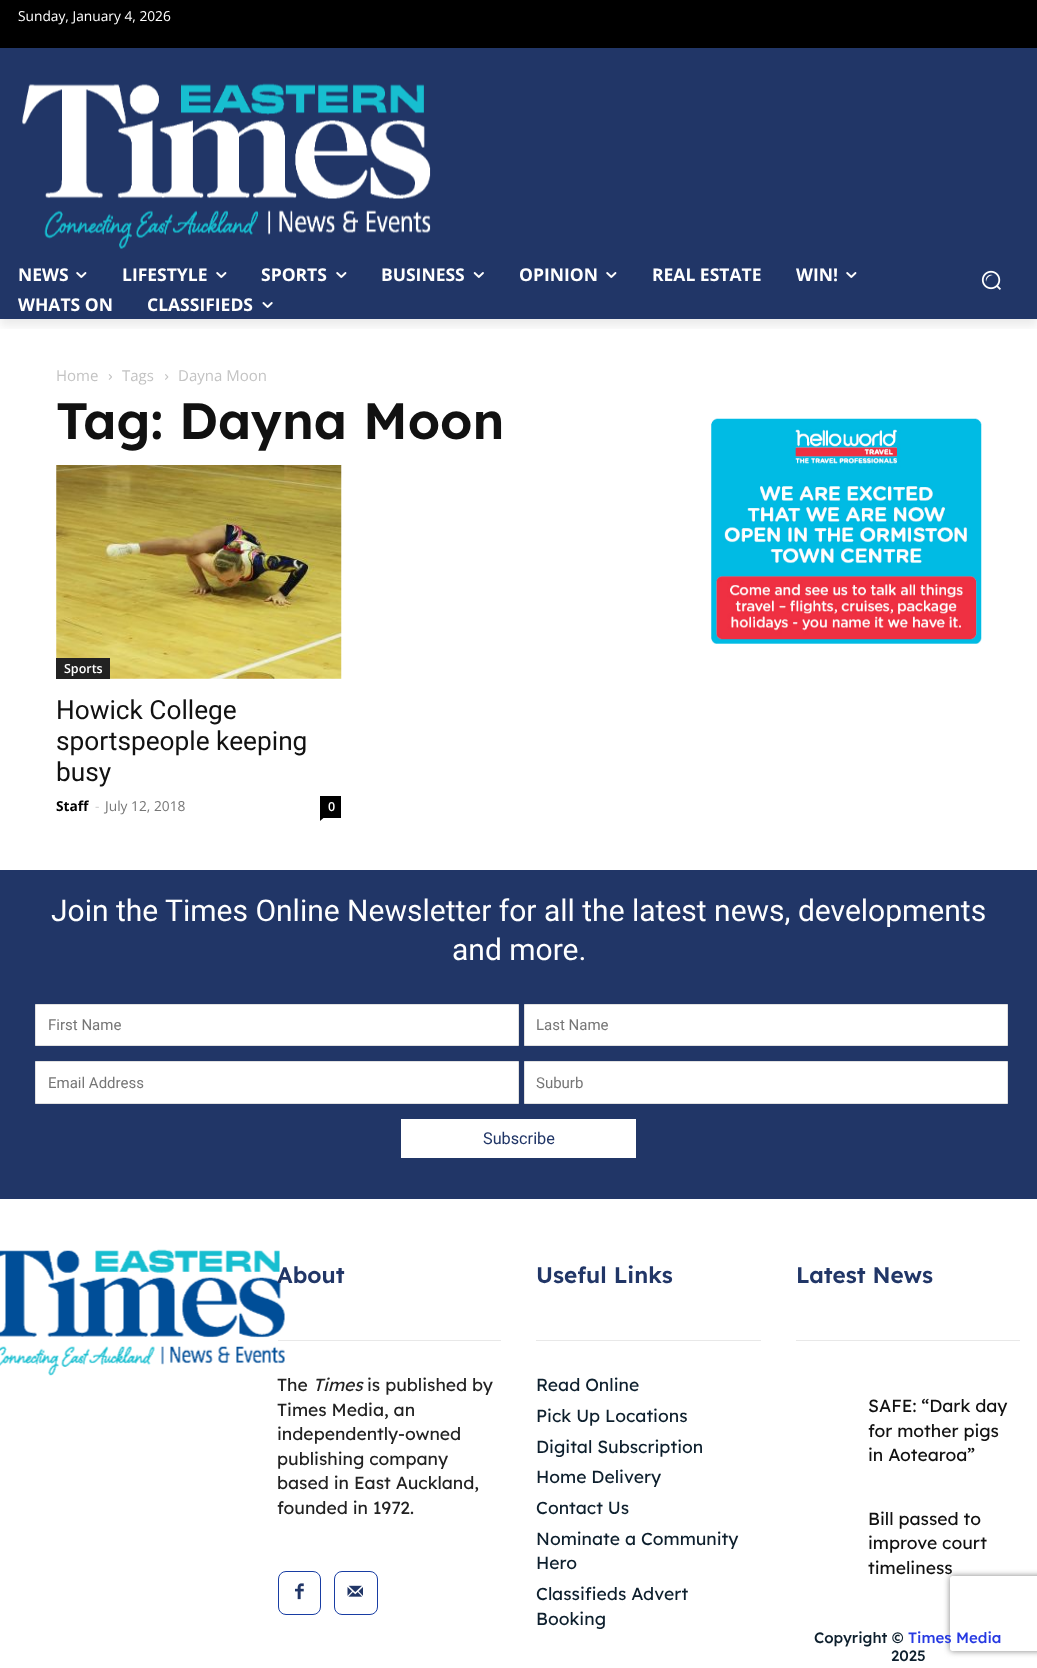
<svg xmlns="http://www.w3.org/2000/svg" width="1037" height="1668">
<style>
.a{font:13.75px Open Sans;fill:#fff}
.b{font:bold 17.5px Open Sans;fill:#fff}
.c{font:15px Open Sans;fill:#c3c3c3}
.d{font:600 51.25px Lexend;fill:#111}
.e{font:600 12.5px Open Sans;fill:#fff}
.f{font:26.25px Roboto;fill:#111}
.g{font:bold 13.75px Open Sans;fill:#000}
.h{font:13.75px Open Sans;fill:#ccc}
.i{font:13.75px Open Sans;fill:#767676}
.j{font:30px Roboto;fill:#fff}
.k{font:15px Roboto;fill:#767676}
.l{font:16.25px Roboto;fill:#213667}
.m{font:600 22.5px Lexend;fill:#213667}
.n{font:17.5px Lexend;fill:#222}
.o{font:italic 17.5px Lexend;fill:#222}
.p{font:17.5px Lexend;fill:#0d1f2d}
.q{font:17.5px Lexend;fill:#111}
.r{font:500 15px Lexend;fill:#0d1f2d}
.s{font:500 15px Lexend;fill:#2639e2}
</style>
<defs>
<clipPath id="clip1"><path d="M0 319h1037v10H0z"/></clipPath>
<clipPath id="clip2"><path d="M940 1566h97v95h-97zm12.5 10h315c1.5 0 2.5 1 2.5 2.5v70c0 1.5-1 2.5-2.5 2.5h-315c-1.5 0-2.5-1-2.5-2.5v-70c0-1.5 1-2.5 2.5-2.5z" clip-rule="evenodd"/></clipPath>
</defs>
<rect width="100%" height="100%" fill="#fff"/>
<path fill="#213667" d="M0 48h1037v271H0z"/>
<path fill="#000" d="M0 0h1037v48H0z"/>
<image href="1.png" x="22" y="83" width="409" height="166"/>
<g clip-path="url(#clip1)">
<path fill="#00000014" filter="blur(5px)" d="M0 8h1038v318H0z"/>
</g>
<image href="2.png" x="76" y="272" width="11" height="6"/>
<image href="2.png" x="216" y="272" width="11" height="6"/>
<image href="2.png" x="336" y="272" width="11" height="6"/>
<image href="3.png" x="473" y="272" width="11" height="6"/>
<image href="2.png" x="606" y="272" width="11" height="6"/>
<image href="2.png" x="846" y="272" width="11" height="6"/>
<image href="4.png" x="262" y="302" width="11" height="6"/>
<image href="5.png" x="981" y="270" width="20" height="20"/>
<image href="6.png" x="108" y="374" width="4" height="6"/>
<image href="7.png" x="165" y="374" width="4" height="6"/>
<image href="8.png" x="56" y="465" width="286" height="214"/>
<path fill="#222" d="M56 658h54v21H56z"/>
<path fill="#000" d="M320 796h21v22H320z"/>
<path fill="#000" d="M320 817.5h4l-4 3.5z"/>
<image href="9.png" x="711" y="418" width="271" height="226"/>
<path fill="#213667" d="M0 870h1037v329H0z"/>
<path fill="#fff" stroke="#e1e1e1" d="M35.5 1004.5h483v41H35.5z"/>
<path fill="#fff" stroke="#e1e1e1" d="M524.5 1004.5h483v41H524.5z"/>
<path fill="#fff" stroke="#e1e1e1" d="M35.5 1061.5h483v42H35.5z"/>
<path fill="#fff" stroke="#e1e1e1" d="M524.5 1061.5h483v42H524.5z"/>
<path fill="#fff" d="M401 1119h235v39H401z"/>
<image href="10.png" x="0" y="1249" width="285" height="127"/>
<path fill="#e8e8e8" d="M278 1340h223v1H278z"/>
<rect fill="none" stroke="#183da3" x="278.5" y="1571.5" width="42" height="43" rx="7.5"/>
<image href="11.png" x="295" y="1583" width="9" height="17"/>
<rect fill="none" stroke="#183da3" x="334.5" y="1571.5" width="43" height="43" rx="7.5"/>
<image href="12.png" x="347" y="1585" width="16" height="12"/>
<path fill="#e8e8e8" d="M536 1340h225v1H536z"/>
<path fill="#e8e8e8" d="M796 1340h224v1H796z"/>
<g clip-path="url(#clip2)">
<rect fill="#808080" filter="blur(3px)" x="950" y="1576" width="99" height="75" rx="2.5"/>
</g>
<text class="a" x="18" y="21">Sunday, January 4, 2026</text>
<text class="b" x="18" y="281">NEWS</text>
<text class="b" x="122" y="281">LIFESTYLE</text>
<text class="b" x="261" y="281">SPORTS</text>
<text class="b" x="381" y="281">BUSINESS</text>
<text class="b" x="519" y="281">OPINION</text>
<text class="b" x="652" y="281">REAL ESTATE</text>
<text class="b" x="796" y="281">WIN!</text>
<text class="b" x="18" y="311">WHATS ON</text>
<text class="b" x="147" y="311">CLASSIFIEDS</text>
<text class="c" x="56" y="381">Home</text>
<text class="c" x="122" y="381">Tags</text>
<text class="c" x="178" y="381">Dayna Moon</text>
<text class="d" x="56" y="439">Tag: Dayna Moon</text>
<text class="e" x="64" y="673">Sports</text>
<text class="f" x="56" y="719">Howick College</text>
<text class="f" x="56" y="750">sportspeople keeping</text>
<text class="f" x="56" y="781">busy</text>
<text class="g" x="56" y="811">Staff</text>
<text class="h" x="95" y="811">-</text>
<text class="i" x="105" y="811">July 12, 2018</text>
<text class="e" x="328" y="811">0</text>
<text class="j" x="51" y="921">Join the Times Online Newsletter for all the latest news, developments</text>
<text class="j" x="452" y="960">and more.</text>
<text class="k" x="48" y="1030">First Name</text>
<text class="k" x="536" y="1030">Last Name</text>
<text class="k" x="48" y="1088">Email Address</text>
<text class="k" x="536" y="1088">Suburb</text>
<text class="l" x="483" y="1144">Subscribe</text>
<text class="m" x="277" y="1283">About</text>
<text class="n" x="277" y="1391">The</text>
<text class="o" x="313" y="1391">Times</text>
<text class="n" x="367" y="1391">is published by</text>
<text class="n" x="277" y="1416">Times Media, an</text>
<text class="n" x="277" y="1440">independently-owned</text>
<text class="n" x="277" y="1465">publishing company</text>
<text class="n" x="277" y="1489">based in East Auckland,</text>
<text class="n" x="277" y="1514">founded in 1972.</text>
<text class="m" x="536" y="1283">Useful Links</text>
<text class="p" x="536" y="1391">Read Online</text>
<text class="p" x="536" y="1422">Pick Up Locations</text>
<text class="p" x="536" y="1453">Digital Subscription</text>
<text class="p" x="536" y="1483">Home Delivery</text>
<text class="p" x="536" y="1514">Contact Us</text>
<text class="p" x="536" y="1545">Nominate a Community</text>
<text class="p" x="536" y="1569">Hero</text>
<text class="p" x="536" y="1600">Classifieds Advert</text>
<text class="p" x="536" y="1625">Booking</text>
<text class="m" x="796" y="1283">Latest News</text>
<text class="q" x="868" y="1412">SAFE: “Dark day</text>
<text class="q" x="868" y="1437">for mother pigs</text>
<text class="q" x="868" y="1461">in Aotearoa”</text>
<text class="q" x="868" y="1525">Bill passed to</text>
<text class="q" x="868" y="1549">improve court</text>
<text class="q" x="868" y="1574">timeliness</text>
<text class="r" x="814" y="1643">Copyright ©</text>
<text class="s" x="908" y="1643">Times Media</text>
<text class="r" x="891" y="1661">2025</text>
</svg>
